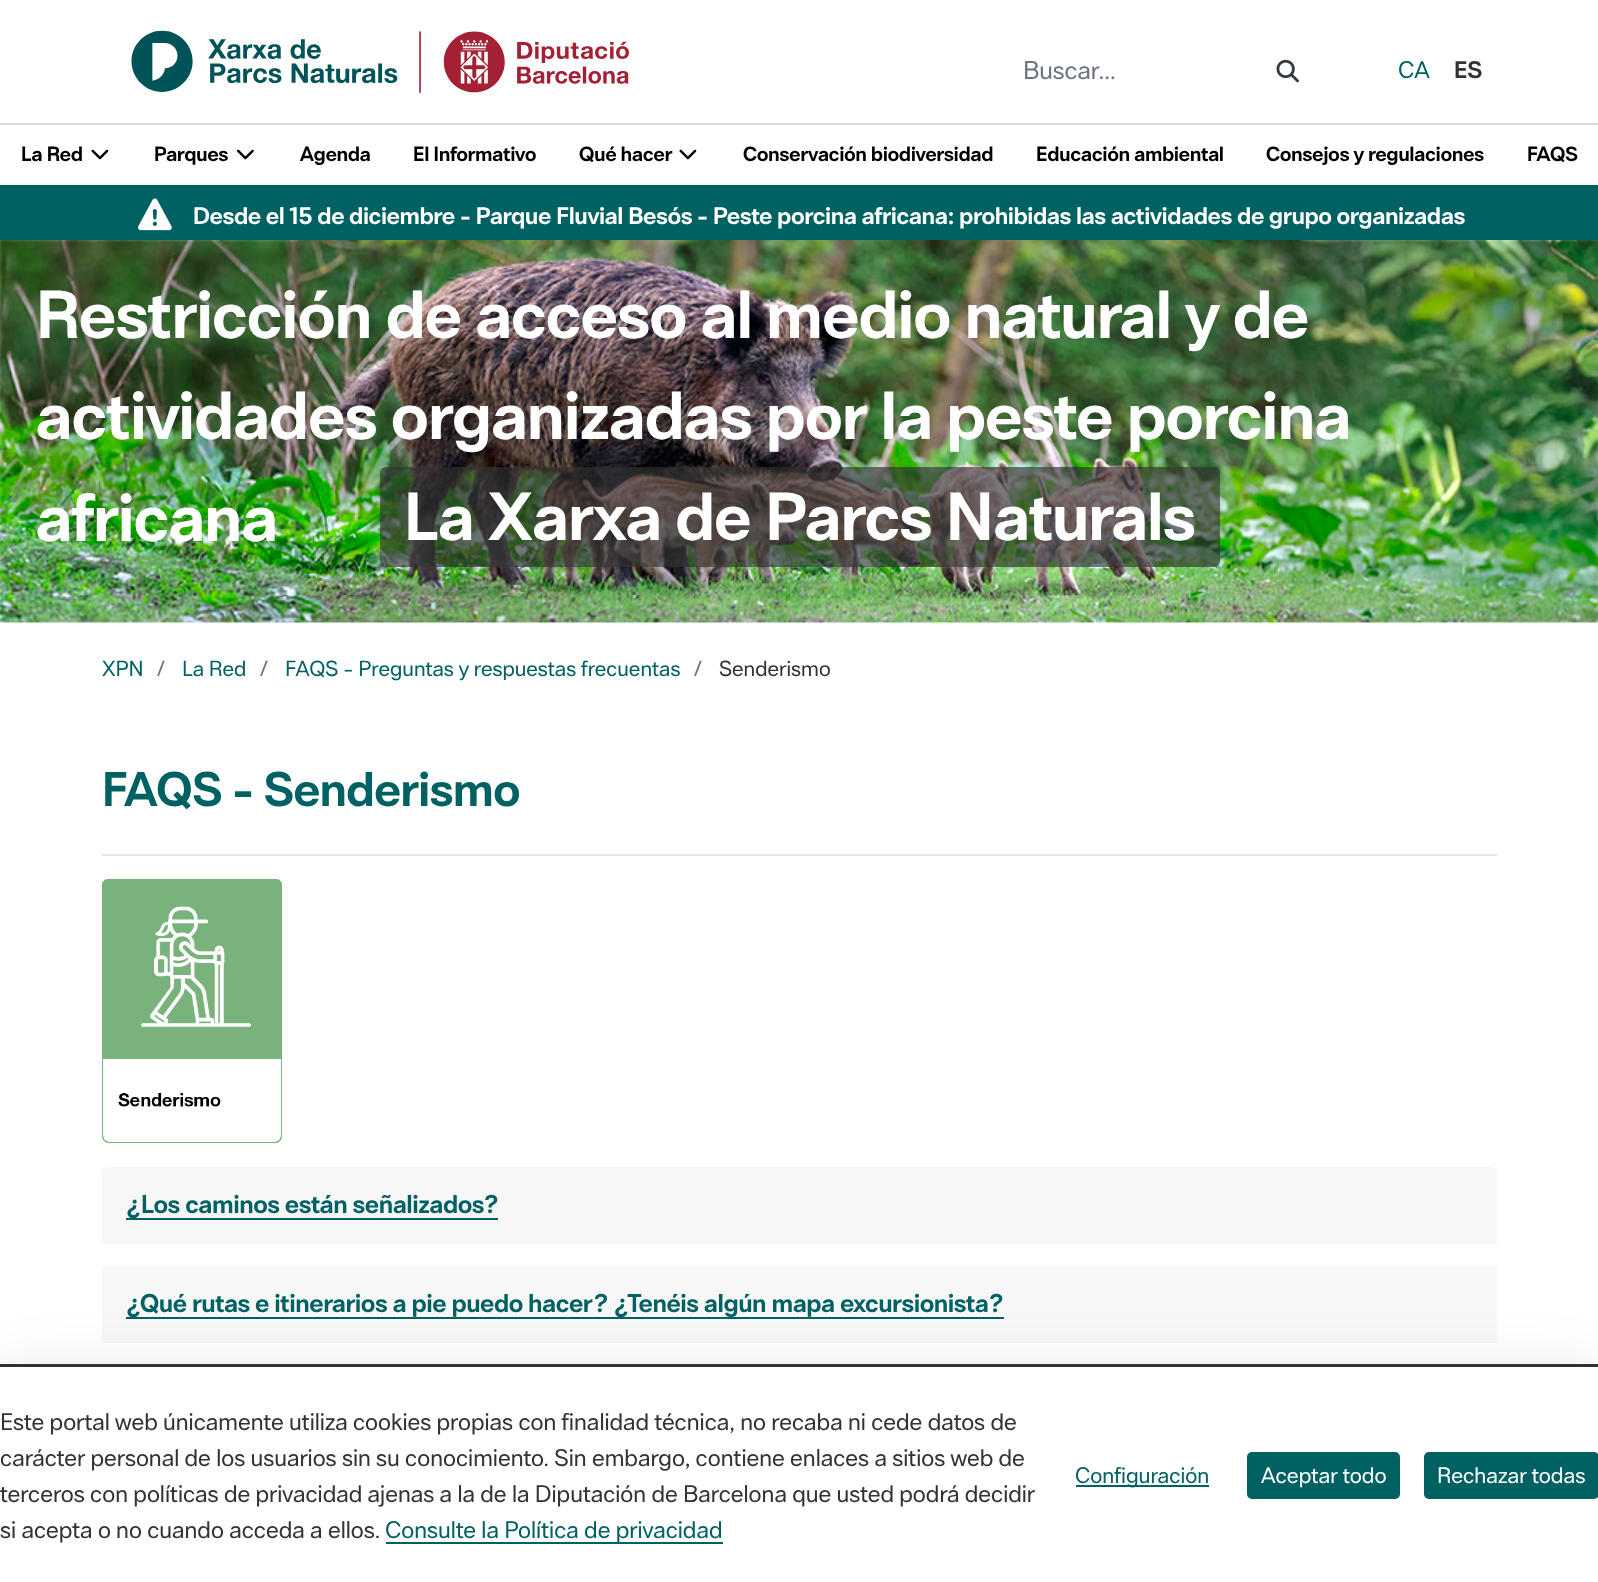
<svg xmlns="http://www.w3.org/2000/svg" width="1598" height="1582">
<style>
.a{font:24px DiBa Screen;fill:#6c757d}
.b{font:22.5px DiBa Screen;fill:#006163}
.c{font:600 22.5px DiBa Screen;fill:#333}
.d{font:600 19.25px DiBa Screen;fill:#000}
.e{font:600 22.5px DiBa Screen;fill:#fff}
.f{font:600 63.3px DiBa Screen;fill:#fff}
.g{font:20.4px DiBa Screen;fill:#006163}
.h{font:20.4px DiBa Screen;fill:#6c757d}
.i{font:20.4px DiBa Screen;fill:#333}
.j{font:600 45.5px DiBa Screen;fill:#006163}
.k{font:600 24px DiBa Screen;fill:#006163}
.l{font:22.5px DiBa Screen;fill:#333}
.m{font:21px DiBa Screen;fill:#006163}
.n{font:21px DiBa Screen;fill:#fff}
</style>
<rect width="100%" height="100%" fill="#fff"/>
<image href="1.png" x="131" y="30" width="498" height="63"/>
<image href="2.png" x="1276" y="59" width="23" height="24"/>
<path fill="#dadada" d="M0 123h1598v2H0z"/>
<image href="3.png" x="91" y="149" width="18" height="11"/>
<image href="4.png" x="237" y="149" width="17" height="11"/>
<image href="3.png" x="679" y="149" width="18" height="11"/>
<path fill="#006163" d="M0 185h1598v55H0z"/>
<image href="5.png" x="138" y="198" width="34" height="33"/>
<image href="6.png" x="0" y="240" width="1598" height="383"/>
<rect fill="#333333a6" x="380" y="467" width="840" height="100" rx="6"/>
<path fill="#e6e6e6" d="M102 854h1395v2H102z"/>
<image href="7.png" x="102" y="879" width="180" height="264"/>
<path fill="#f7f7f7" d="M108 1167h1383c3.5 0 6 2.5 6 6v71h-1395v-71c0-3.5 2.5-6 6-6z"/>
<path fill="#006163" d="M126 1218h372v2H126z"/>
<path fill="#f7f7f7" d="M102 1266h1395v77H102z"/>
<path fill="#006163" d="M126 1317h878v2H126z"/>
<path fill="#0000002e" filter="blur(36px)" d="M0 1388h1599v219H0z"/>
<path fill="#fff" d="M0 1367h1598v215H0z"/>
<path fill="#333" d="M0 1364h1598v3H0z"/>
<path fill="#006163" d="M386 1542h337v2H386z"/>
<path fill="#006163" d="M1076 1485h133v2H1076z"/>
<rect fill="#006163" stroke="#006163" stroke-width="2" x="1248" y="1453" width="151" height="45" rx="4"/>
<rect fill="#006163" stroke="#006163" stroke-width="2" x="1425" y="1453" width="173" height="45" rx="4"/>
<text class="a" x="1023" y="79">Buscar...</text>
<text class="b" x="1398" y="78">CA</text>
<text class="c" x="1454" y="78">ES</text>
<text class="d" x="21" y="161">La Red</text>
<text class="d" x="154" y="161">Parques</text>
<text class="d" x="300" y="161">Agenda</text>
<text class="d" x="413" y="161">El Informativo</text>
<text class="d" x="579" y="161">Qué hacer</text>
<text class="d" x="743" y="161">Conservación biodiversidad</text>
<text class="d" x="1036" y="161">Educación ambiental</text>
<text class="d" x="1266" y="161">Consejos y regulaciones</text>
<text class="d" x="1527" y="161">FAQS</text>
<text class="e" x="193" y="224">Desde el 15 de diciembre - Parque Fluvial Besós - Peste porcina africana: prohibidas las actividades de grupo organizadas</text>
<text class="f" x="36" y="338">Restricción de acceso al medio natural y de</text>
<text class="f" x="36" y="439">actividades organizadas por la peste porcina</text>
<text class="f" x="36" y="541">africana</text>
<text class="f" x="404" y="540">La Xarxa de Parcs Naturals</text>
<text class="g" x="102" y="676">XPN</text>
<text class="h" x="156" y="676">/</text>
<text class="g" x="182" y="676">La Red</text>
<text class="h" x="259" y="676">/</text>
<text class="g" x="285" y="676">FAQS - Preguntas y respuestas frecuentas</text>
<text class="h" x="693" y="676">/</text>
<text class="i" x="719" y="676">Senderismo</text>
<text class="j" x="102" y="806">FAQS - Senderismo</text>
<text class="k" x="126" y="1213">¿Los caminos están señalizados?</text>
<text class="k" x="126" y="1312">¿Qué rutas e itinerarios a pie puedo hacer? ¿Tenéis algún mapa excursionista?</text>
<text class="l" x="0" y="1430">Este portal web únicamente utiliza cookies propias con finalidad técnica, no recaba ni cede datos de</text>
<text class="l" x="0" y="1466">carácter personal de los usuarios sin su conocimiento. Sin embargo, contiene enlaces a sitios web de</text>
<text class="l" x="0" y="1502">terceros con políticas de privacidad ajenas a la de la Diputación de Barcelona que usted podrá decidir</text>
<text class="l" x="0" y="1538">si acepta o no cuando acceda a ellos.</text>
<text class="b" x="385" y="1538">Consulte la Política de privacidad</text>
<text class="m" x="1075" y="1483">Configuración</text>
<text class="n" x="1261" y="1483">Aceptar todo</text>
<text class="n" x="1437" y="1483">Rechazar todas</text>
</svg>
